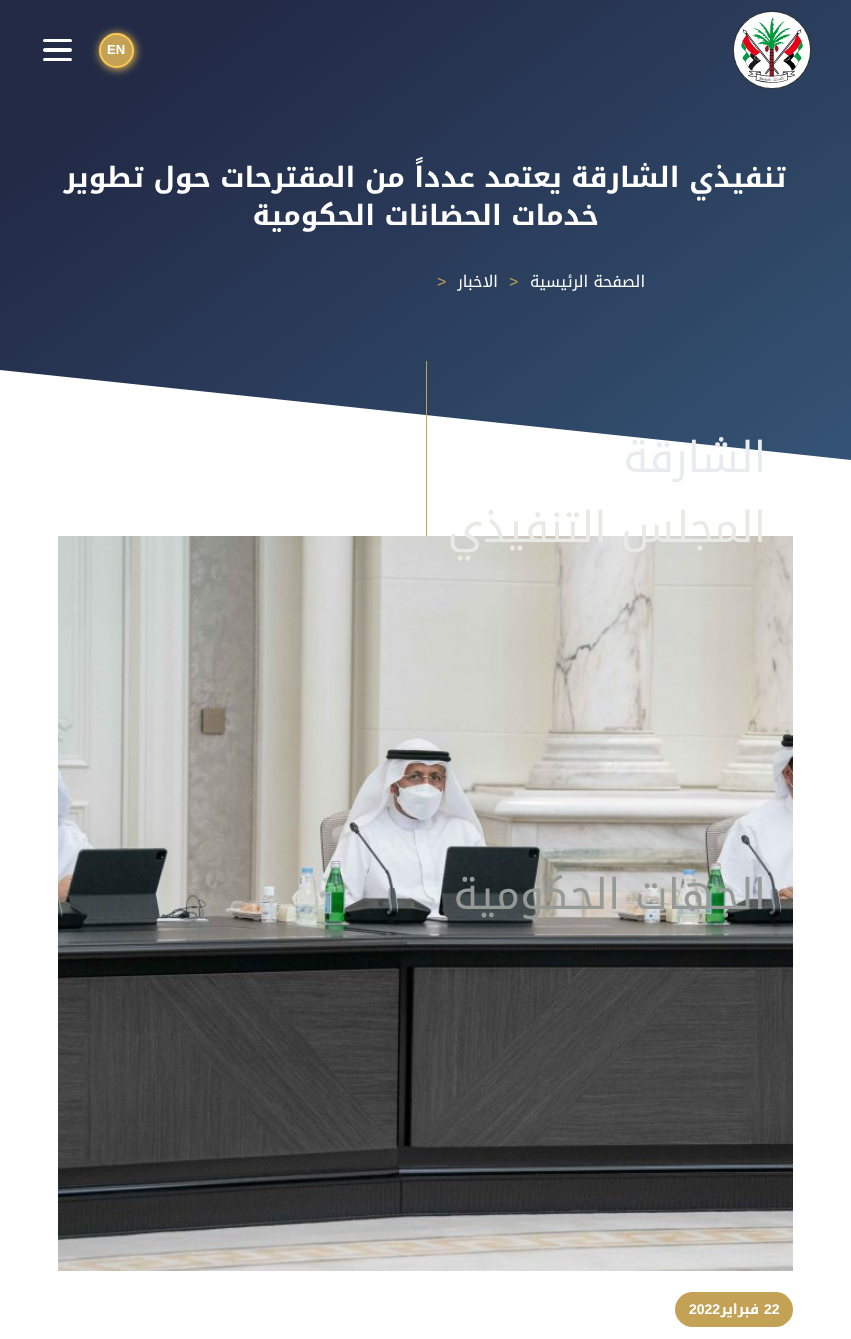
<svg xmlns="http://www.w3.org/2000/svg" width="851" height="1339">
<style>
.a{font:bold 13px Liberation Sans;fill:#fff}
.b{font:42.5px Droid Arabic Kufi;direction:rtl;fill:#e9ecef}
.c{font:42.5px Droid Arabic Kufi;direction:rtl;fill:#e9e9e6}
.d{font:42.5px Droid Arabic Kufi;direction:rtl;fill:#959a97}
.e{font:bold 28px Droid Arabic Kufi;direction:rtl;fill:#fff}
.f{font:16px Droid Arabic Kufi;direction:rtl;fill:#fff}
.g{font:16px Liberation Sans;fill:#c3a255}
.h{font:bold 14px Liberation Sans;fill:#fff}
.i{font:bold 14px Droid Arabic Kufi;direction:rtl;fill:#fff}
</style>
<defs>
<linearGradient id="g1" gradientUnits="userSpaceOnUse" x1="151" y1="-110" x2="700" y2="646"><stop offset="0.17" stop-color="#222a46"/><stop offset="1" stop-color="#365779"/></linearGradient>
<clipPath id="clip1"><path d="M0 0h851v536H0z"/></clipPath>
</defs>
<rect width="100%" height="100%" fill="#fff"/>
<path fill="url(#g1)" d="M0 0h851v460H0z"/>
<image href="1.png" x="733" y="11" width="78" height="78"/>
<rect fill="#f9c854" filter="blur(5px)" x="100" y="34" width="35" height="35" rx="17.5"/>
<circle fill="#c3a255" stroke="#f9c854" stroke-width="2" cx="116.5" cy="50.5" r="16.5"/>
<rect fill="#fff" x="43" y="39" width="29" height="3" rx="1.5"/>
<rect fill="#fff" x="43" y="48" width="29" height="4" rx="2"/>
<rect fill="#fff" x="43" y="58" width="29" height="3" rx="1.5"/>
<g clip-path="url(#clip1)">
<path fill="#fff" d="M0 370l851 90v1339l-851-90z"/>
</g>
<path fill="#c3a255" d="M426 361h1v175H426z"/>
<image href="2.png" x="58" y="536" width="735" height="735"/>
<rect fill="#c3a255" x="675" y="1292" width="118" height="35" rx="17.5"/>
<text class="a" x="107" y="54">EN</text>
<text class="b" x="766" y="472">الشارقة</text>
<text class="c" x="766" y="542">المجلس التنفيذي</text>
<text class="d" x="766" y="909">الجهات الحكومية</text>
<text class="e" x="786" y="187">تنفيذي الشارقة يعتمد عدداً من المقترحات حول تطوير</text>
<text class="e" x="599" y="225">خدمات الحضانات الحكومية</text>
<text class="f" x="645" y="287">الصفحة الرئيسية</text>
<text class="g" x="509" y="287">&gt;</text>
<text class="f" x="498" y="287">الاخبار</text>
<text class="g" x="437" y="287">&gt;</text>
<text class="h" x="764" y="1314">22</text>
<text class="h" x="689" y="1314">2022</text>
<text class="i" x="759" y="1314">فبراير</text>
</svg>
